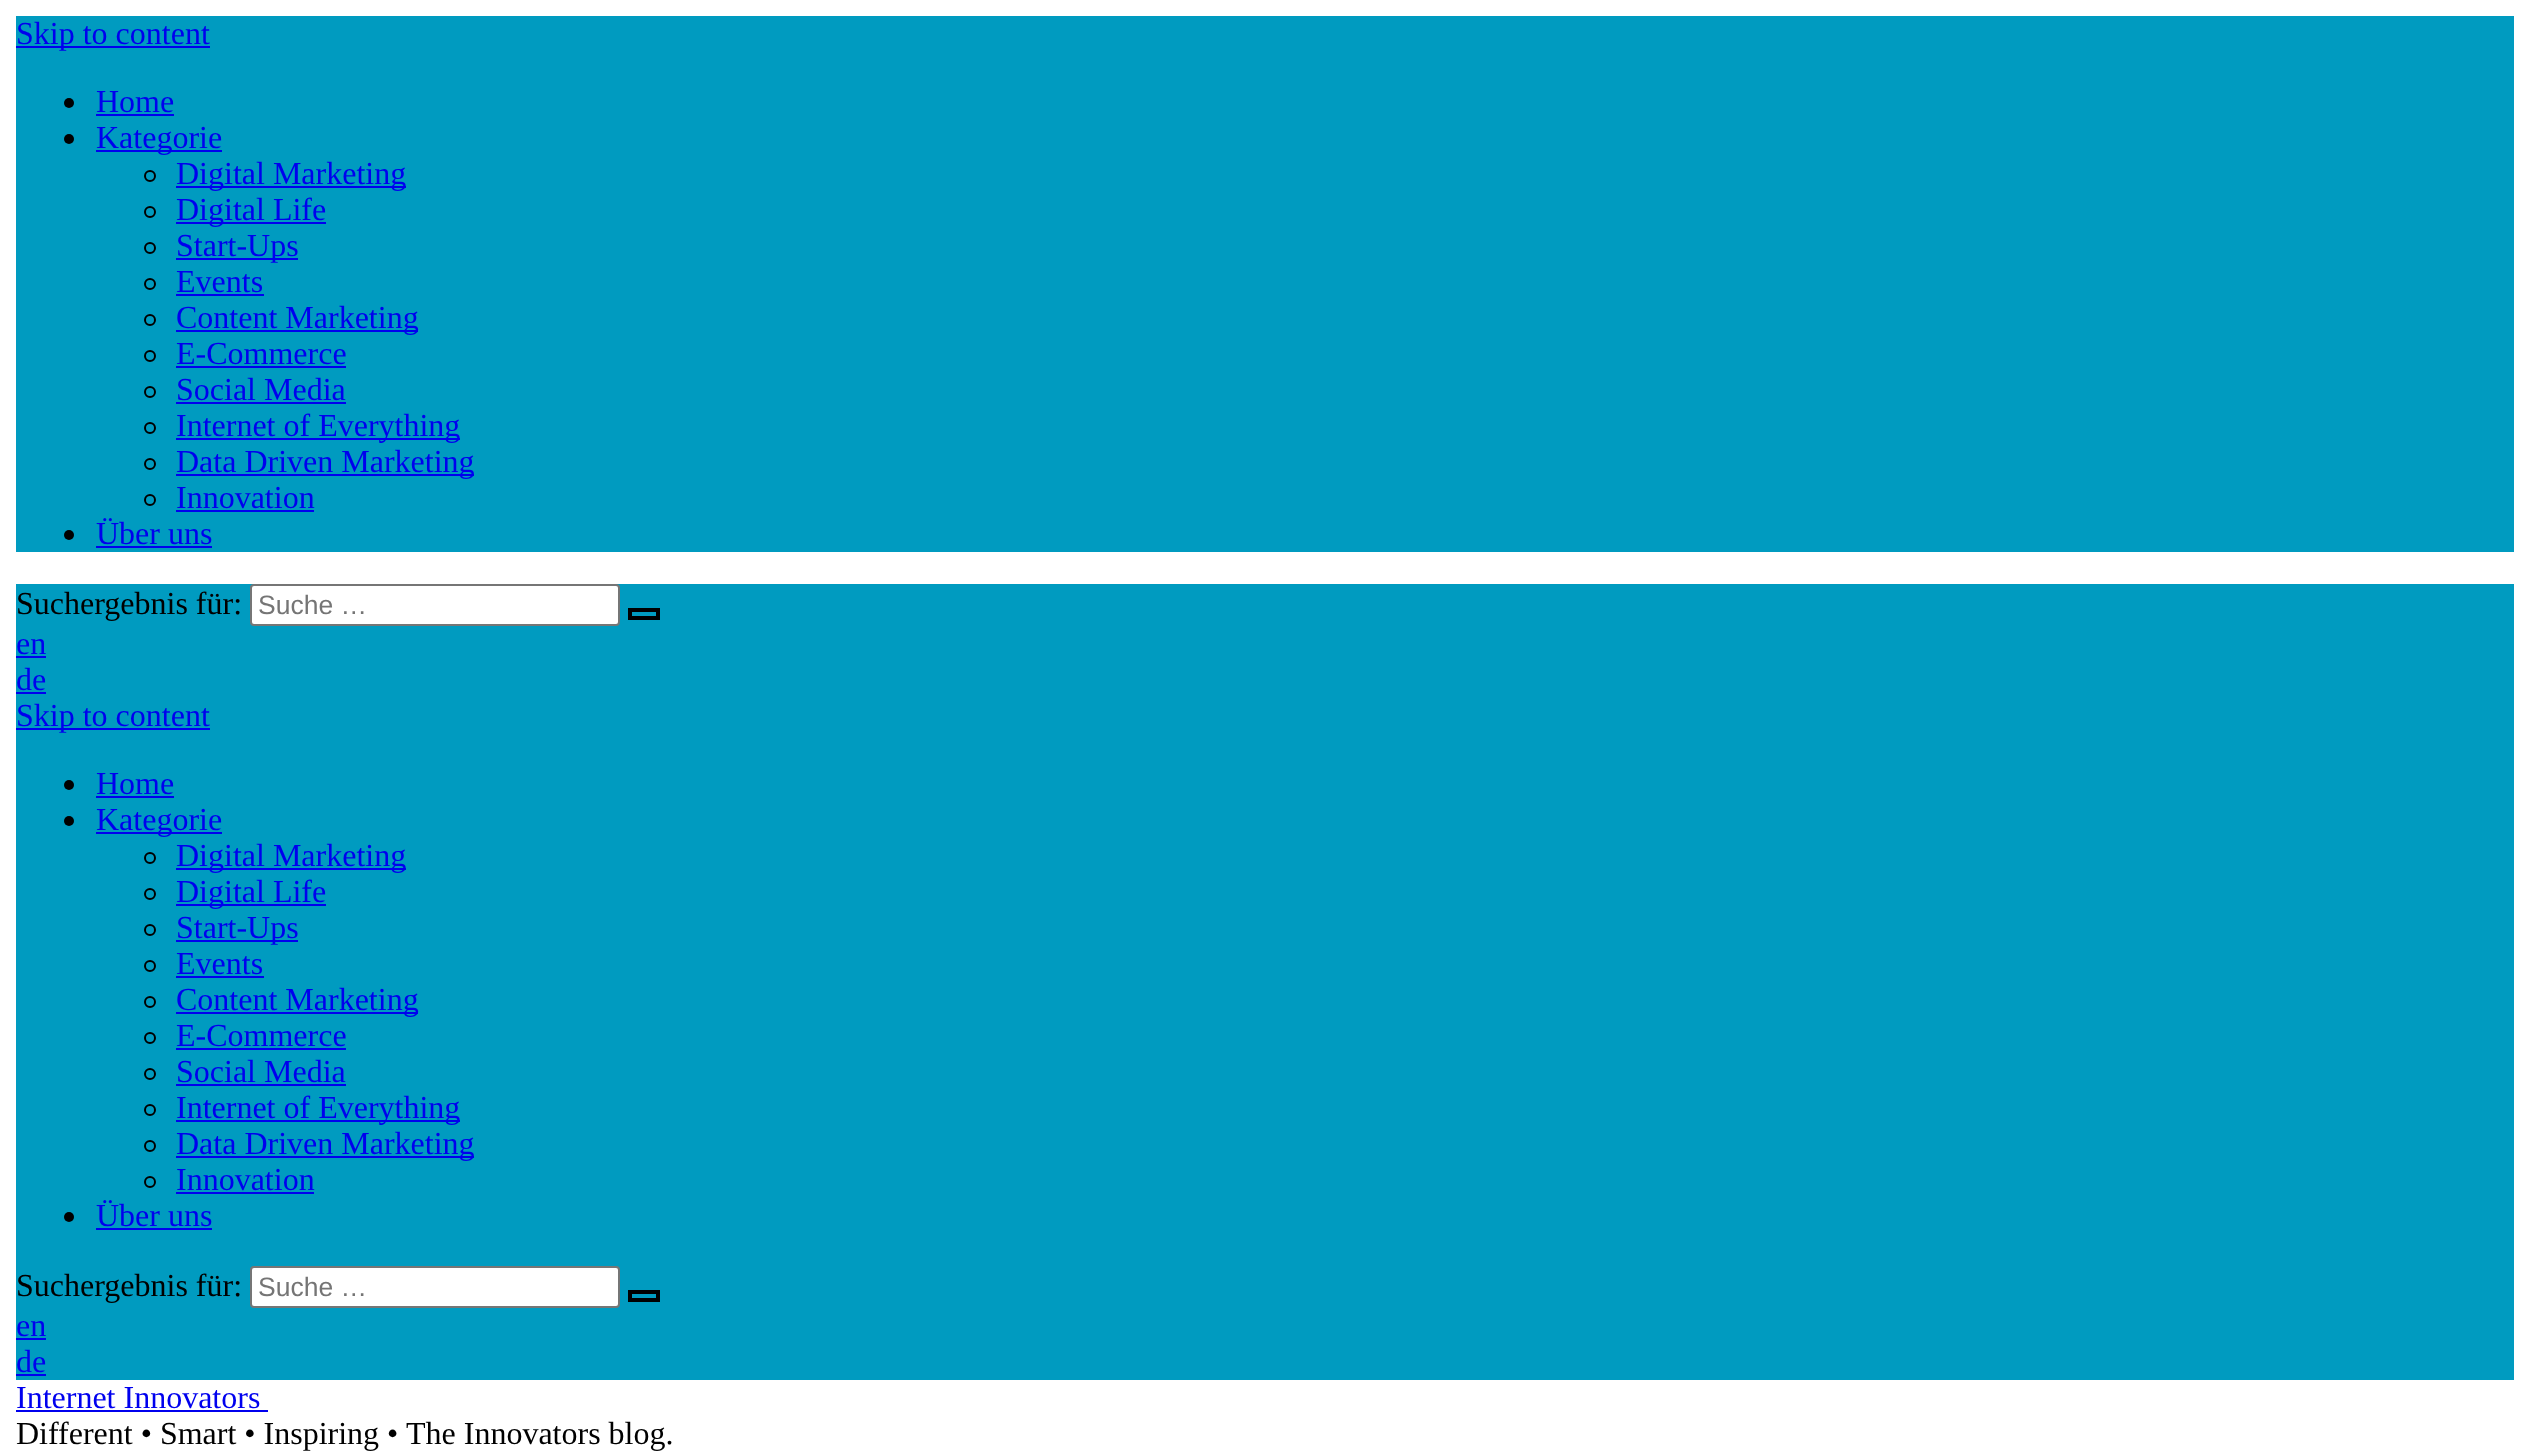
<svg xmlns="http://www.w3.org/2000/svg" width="2529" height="1454">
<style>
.a{font:32px Liberation Serif;fill:#00e}
.b{font:32px Liberation Serif;fill:#000}
.c{font:26.5px Liberation Sans;fill:#757575}
</style>
<rect width="100%" height="100%" fill="#fff"/>
<path fill="#009bc0" d="M16 16h2498v536H16z"/>
<path fill="#00e" d="M16 46h194v2H16z"/>
<circle fill="#000" cx="69" cy="103" r="5"/>
<path fill="#00e" d="M96 114h78v2H96z"/>
<circle fill="#000" cx="69" cy="139" r="5"/>
<path fill="#00e" d="M96 150h126v2H96z"/>
<circle fill="none" stroke="#000" stroke-width="2" cx="150" cy="176" r="5"/>
<path fill="#00e" d="M176 186h230v2H176z"/>
<circle fill="none" stroke="#000" stroke-width="2" cx="150" cy="212" r="5"/>
<path fill="#00e" d="M176 222h150v2H176z"/>
<circle fill="none" stroke="#000" stroke-width="2" cx="150" cy="248" r="5"/>
<path fill="#00e" d="M176 258h122v2H176z"/>
<circle fill="none" stroke="#000" stroke-width="2" cx="150" cy="284" r="5"/>
<path fill="#00e" d="M176 294h88v2H176z"/>
<circle fill="none" stroke="#000" stroke-width="2" cx="150" cy="320" r="5"/>
<path fill="#00e" d="M176 330h242v2H176z"/>
<circle fill="none" stroke="#000" stroke-width="2" cx="150" cy="356" r="5"/>
<path fill="#00e" d="M176 366h170v2H176z"/>
<circle fill="none" stroke="#000" stroke-width="2" cx="150" cy="392" r="5"/>
<path fill="#00e" d="M176 402h170v2H176z"/>
<circle fill="none" stroke="#000" stroke-width="2" cx="150" cy="428" r="5"/>
<path fill="#00e" d="M176 438h284v2H176z"/>
<circle fill="none" stroke="#000" stroke-width="2" cx="150" cy="464" r="5"/>
<path fill="#00e" d="M176 474h298v2H176z"/>
<circle fill="none" stroke="#000" stroke-width="2" cx="150" cy="500" r="5"/>
<path fill="#00e" d="M176 510h138v2H176z"/>
<circle fill="#000" cx="69" cy="535" r="5"/>
<path fill="#00e" d="M96 546h116v2H96z"/>
<path fill="#009bc0" d="M16 584h2498v796H16z"/>
<rect fill="#fff" stroke="#767676" stroke-width="2" x="251" y="585" width="368" height="40" rx="3"/>
<path fill="none" stroke="#000" stroke-width="4" d="M630 610h28v8H630z"/>
<path fill="#00e" d="M16 656h30v2H16z"/>
<path fill="#00e" d="M16 692h30v2H16z"/>
<path fill="#00e" d="M16 728h194v2H16z"/>
<circle fill="#000" cx="69" cy="785" r="5"/>
<path fill="#00e" d="M96 796h78v2H96z"/>
<circle fill="#000" cx="69" cy="821" r="5"/>
<path fill="#00e" d="M96 832h126v2H96z"/>
<circle fill="none" stroke="#000" stroke-width="2" cx="150" cy="858" r="5"/>
<path fill="#00e" d="M176 868h230v2H176z"/>
<circle fill="none" stroke="#000" stroke-width="2" cx="150" cy="894" r="5"/>
<path fill="#00e" d="M176 904h150v2H176z"/>
<circle fill="none" stroke="#000" stroke-width="2" cx="150" cy="930" r="5"/>
<path fill="#00e" d="M176 940h122v2H176z"/>
<circle fill="none" stroke="#000" stroke-width="2" cx="150" cy="966" r="5"/>
<path fill="#00e" d="M176 976h88v2H176z"/>
<circle fill="none" stroke="#000" stroke-width="2" cx="150" cy="1002" r="5"/>
<path fill="#00e" d="M176 1012h242v2H176z"/>
<circle fill="none" stroke="#000" stroke-width="2" cx="150" cy="1038" r="5"/>
<path fill="#00e" d="M176 1048h170v2H176z"/>
<circle fill="none" stroke="#000" stroke-width="2" cx="150" cy="1074" r="5"/>
<path fill="#00e" d="M176 1084h170v2H176z"/>
<circle fill="none" stroke="#000" stroke-width="2" cx="150" cy="1110" r="5"/>
<path fill="#00e" d="M176 1120h284v2H176z"/>
<circle fill="none" stroke="#000" stroke-width="2" cx="150" cy="1146" r="5"/>
<path fill="#00e" d="M176 1156h298v2H176z"/>
<circle fill="none" stroke="#000" stroke-width="2" cx="150" cy="1182" r="5"/>
<path fill="#00e" d="M176 1192h138v2H176z"/>
<circle fill="#000" cx="69" cy="1217" r="5"/>
<path fill="#00e" d="M96 1228h116v2H96z"/>
<rect fill="#fff" stroke="#767676" stroke-width="2" x="251" y="1267" width="368" height="40" rx="3"/>
<path fill="none" stroke="#000" stroke-width="4" d="M630 1292h28v8H630z"/>
<path fill="#00e" d="M16 1338h30v2H16z"/>
<path fill="#00e" d="M16 1374h30v2H16z"/>
<path fill="#00e" d="M16 1410h252v2H16z"/>
<text class="a" x="16" y="44">Skip to content</text>
<text class="a" x="96" y="112">Home</text>
<text class="a" x="96" y="148">Kategorie</text>
<text class="a" x="176" y="184">Digital Marketing</text>
<text class="a" x="176" y="220">Digital Life</text>
<text class="a" x="176" y="256">Start-Ups</text>
<text class="a" x="176" y="292">Events</text>
<text class="a" x="176" y="328">Content Marketing</text>
<text class="a" x="176" y="364">E-Commerce</text>
<text class="a" x="176" y="400">Social Media</text>
<text class="a" x="176" y="436">Internet of Everything</text>
<text class="a" x="176" y="472">Data Driven Marketing</text>
<text class="a" x="176" y="508">Innovation</text>
<text class="a" x="96" y="544">Über uns</text>
<text class="b" x="16" y="614">Suchergebnis für:</text>
<text class="c" x="258" y="614">Suche …</text>
<text class="a" x="16" y="654">en</text>
<text class="a" x="16" y="690">de</text>
<text class="a" x="16" y="726">Skip to content</text>
<text class="a" x="96" y="794">Home</text>
<text class="a" x="96" y="830">Kategorie</text>
<text class="a" x="176" y="866">Digital Marketing</text>
<text class="a" x="176" y="902">Digital Life</text>
<text class="a" x="176" y="938">Start-Ups</text>
<text class="a" x="176" y="974">Events</text>
<text class="a" x="176" y="1010">Content Marketing</text>
<text class="a" x="176" y="1046">E-Commerce</text>
<text class="a" x="176" y="1082">Social Media</text>
<text class="a" x="176" y="1118">Internet of Everything</text>
<text class="a" x="176" y="1154">Data Driven Marketing</text>
<text class="a" x="176" y="1190">Innovation</text>
<text class="a" x="96" y="1226">Über uns</text>
<text class="b" x="16" y="1296">Suchergebnis für:</text>
<text class="c" x="258" y="1296">Suche …</text>
<text class="a" x="16" y="1336">en</text>
<text class="a" x="16" y="1372">de</text>
<text class="a" x="16" y="1408">Internet Innovators</text>
<text class="b" x="16" y="1444">Different • Smart • Inspiring •</text>
<text class="b" x="406" y="1444">The Innovators blog.</text>
</svg>
